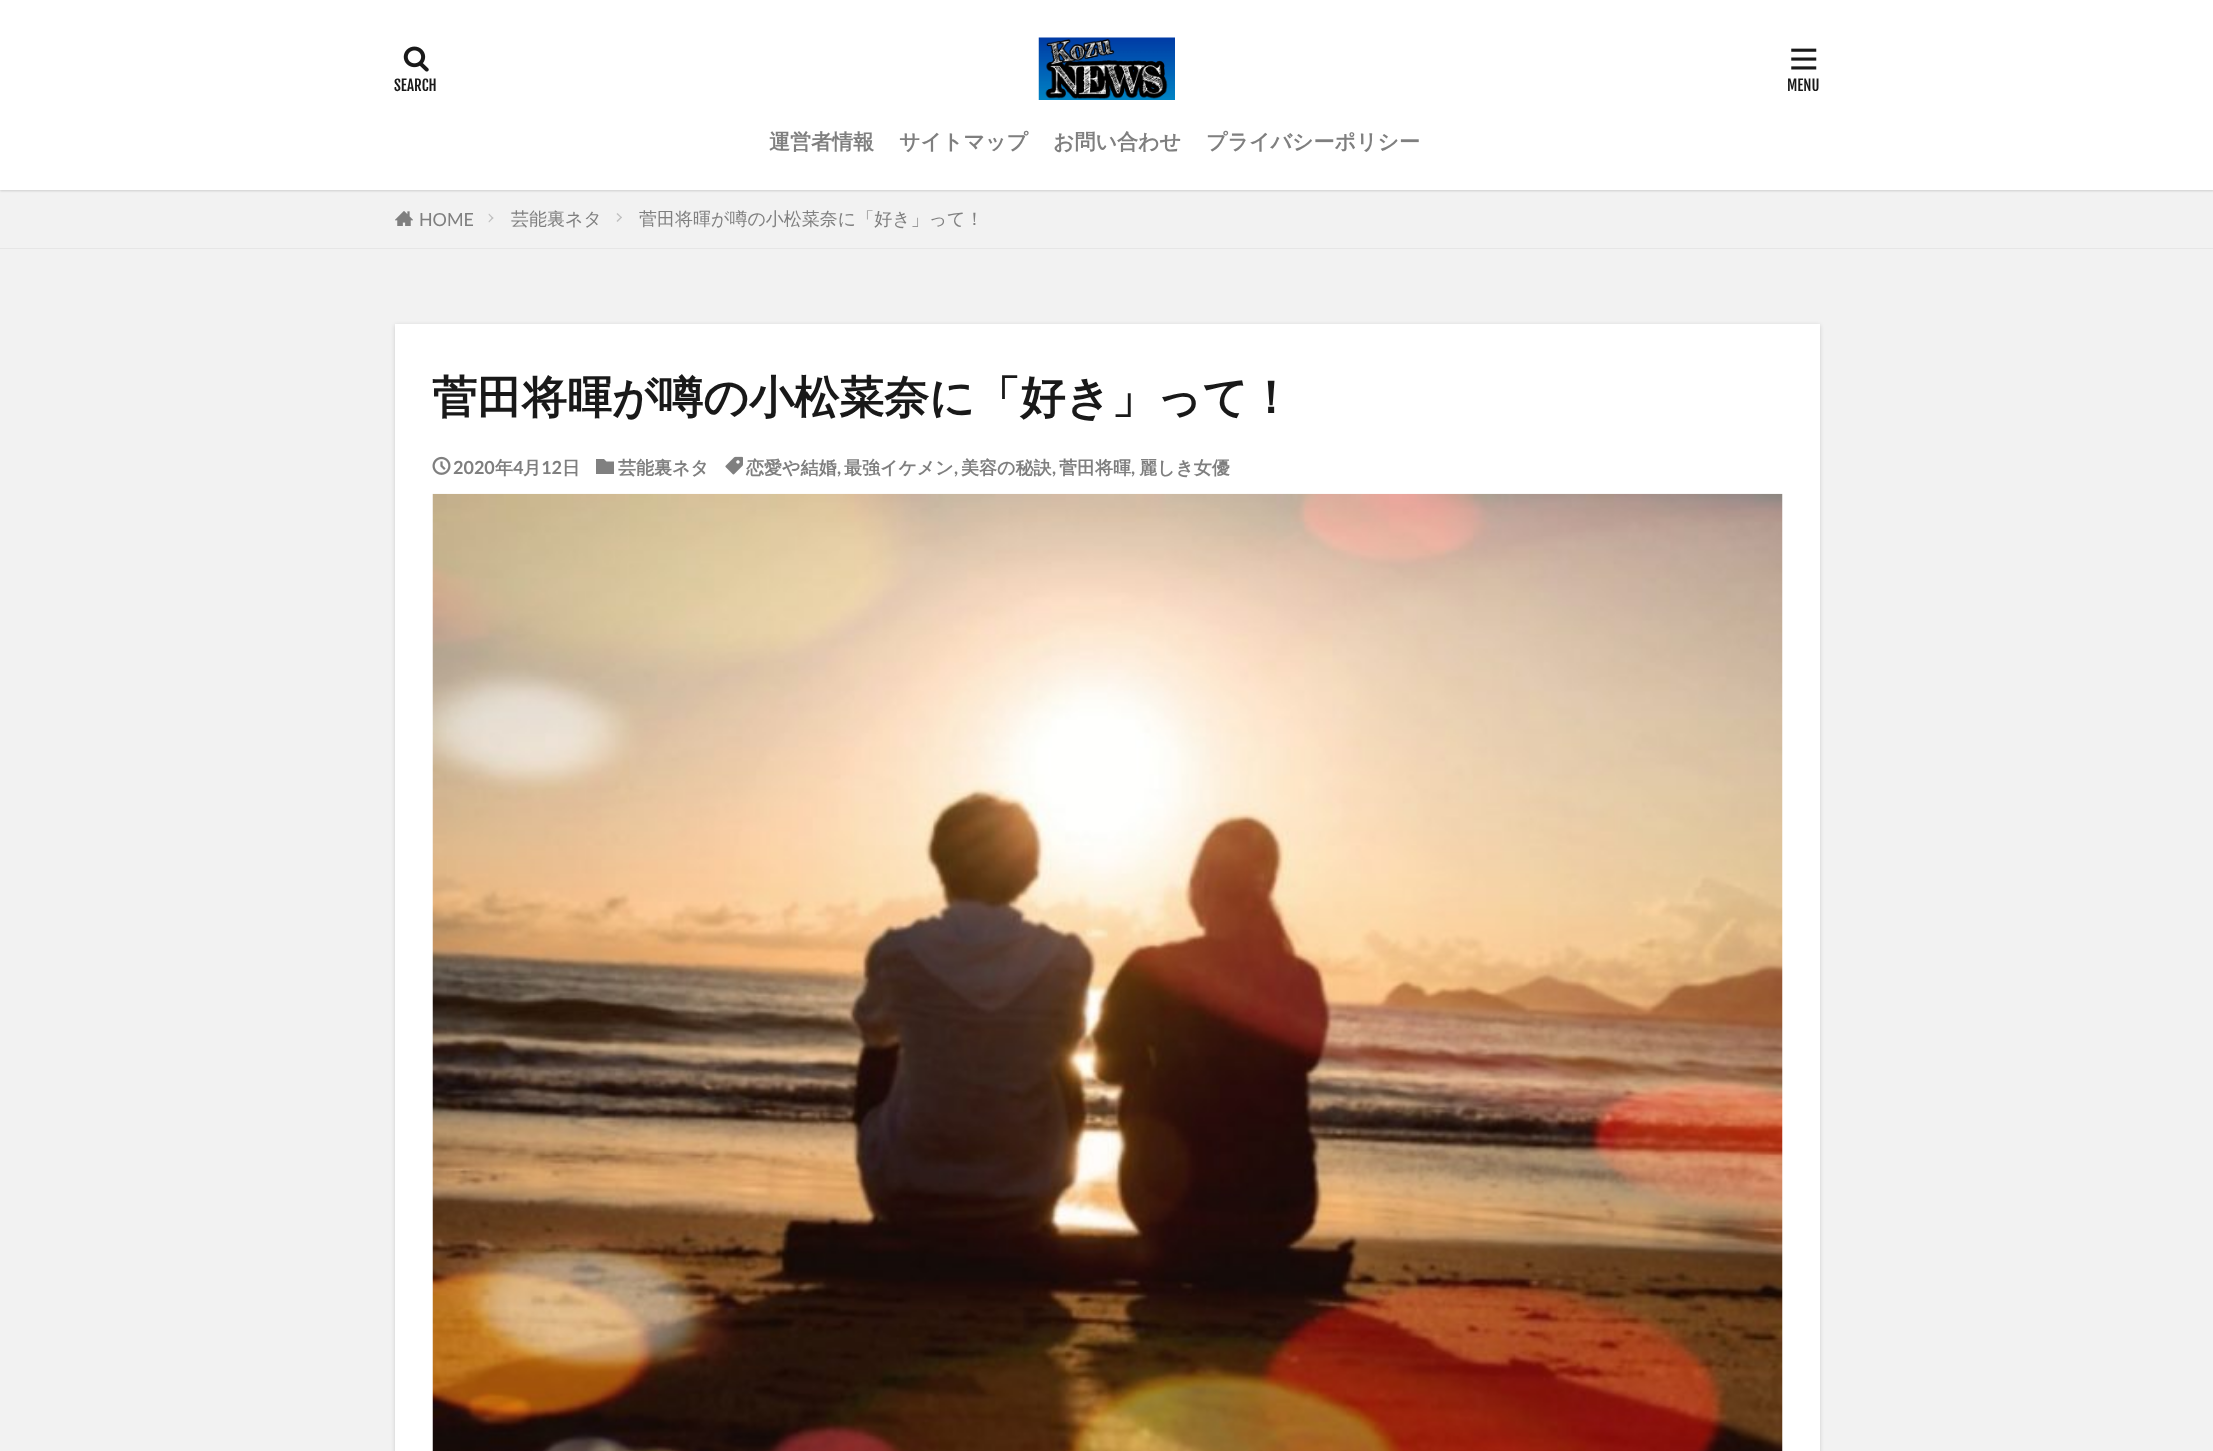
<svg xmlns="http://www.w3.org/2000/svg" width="2213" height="1451">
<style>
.a{font:15px Fjalla One;fill:#191919}
.b{font:bold 21px WenQuanYi Zen Hei;fill:#7f7f7f}
.c{font:18px Lato;fill:#7f7f7f}
.d{font:500 18px WenQuanYi Zen Hei;fill:#7f7f7f}
.e{font:bold 45px WenQuanYi Zen Hei;fill:#191919}
.f{font:bold 18px Lato;fill:#7f7f7f}
.g{font:bold 18px WenQuanYi Zen Hei;fill:#7f7f7f}
</style>
<rect width="100%" height="100%" fill="#f2f2f2"/>
<path fill="#00000026" filter="blur(1px)" d="M0 1h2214v190H0z"/>
<path fill="#fff" d="M0 0h2213v190H0z"/>
<image href="1.png" x="403" y="46" width="26" height="26"/>
<image href="2.png" x="1038" y="37" width="137" height="63"/>
<image href="3.png" x="1791" y="48" width="26" height="22"/>
<path fill="#e6e6e6" d="M0 248h2213v1H0z"/>
<image href="4.png" x="395" y="211" width="18" height="15"/>
<path fill="#bfbfbf" d="M489 213.5l4.5 4.5l-1 1l-4-4.5z"/>
<path fill="#bfbfbf" d="M492.5 217l1 1l-4.5 4.5l-.5-1z"/>
<path fill="#bfbfbf" d="M617.5 213l4.5 4.5l-1 .5l-4.5-4z"/>
<path fill="#bfbfbf" d="M621 216.5l1 1l-4.5 4.5l-1-1z"/>
<path fill="#00000026" filter="blur(2px)" d="M395 325h1425v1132H395z"/>
<path fill="#fff" d="M395 324h1425v1127H395z"/>
<image href="5.png" x="432" y="456" width="19" height="19"/>
<path fill="#808080" d="M604 459l2.5 2.5h7.5v12.5h-18v-15z"/>
<image href="6.png" x="725" y="456" width="18" height="19"/>
<image href="7.png" x="432" y="493" width="1351" height="958"/>
<text class="a" x="394" y="91">SEARCH</text>
<text class="a" x="1787" y="91">MENU</text>
<text class="b" x="769" y="149">運営者情報</text>
<text class="b" x="899" y="149">サイトマップ</text>
<text class="b" x="1053" y="149">お問い合わせ</text>
<text class="b" x="1206" y="149">プライバシーポリシー</text>
<text class="c" x="419" y="226">HOME</text>
<text class="d" x="511" y="225">芸能裏ネタ</text>
<text class="d" x="639" y="225">菅田将暉が噂の小松菜奈に「好き」って！</text>
<text class="e" x="432" y="413">菅田将暉が噂の小松菜奈に「好き」って！</text>
<text class="f" x="453" y="474">2020</text>
<text class="g" x="495" y="474">年</text>
<text class="f" x="513" y="474">4</text>
<text class="g" x="523" y="474">月</text>
<text class="f" x="541" y="474">12</text>
<text class="g" x="562" y="474">日</text>
<text class="g" x="618" y="474">芸能裏ネタ</text>
<text class="g" x="746" y="474">恋愛や結婚</text>
<text class="f" x="837" y="474">,</text>
<text class="g" x="844" y="474">最強イケメン</text>
<text class="f" x="954" y="474">,</text>
<text class="g" x="961" y="474">美容の秘訣</text>
<text class="f" x="1052" y="474">,</text>
<text class="g" x="1059" y="474">菅田将暉</text>
<text class="f" x="1131" y="474">,</text>
<text class="g" x="1139" y="474">麗しき女優</text>
</svg>
